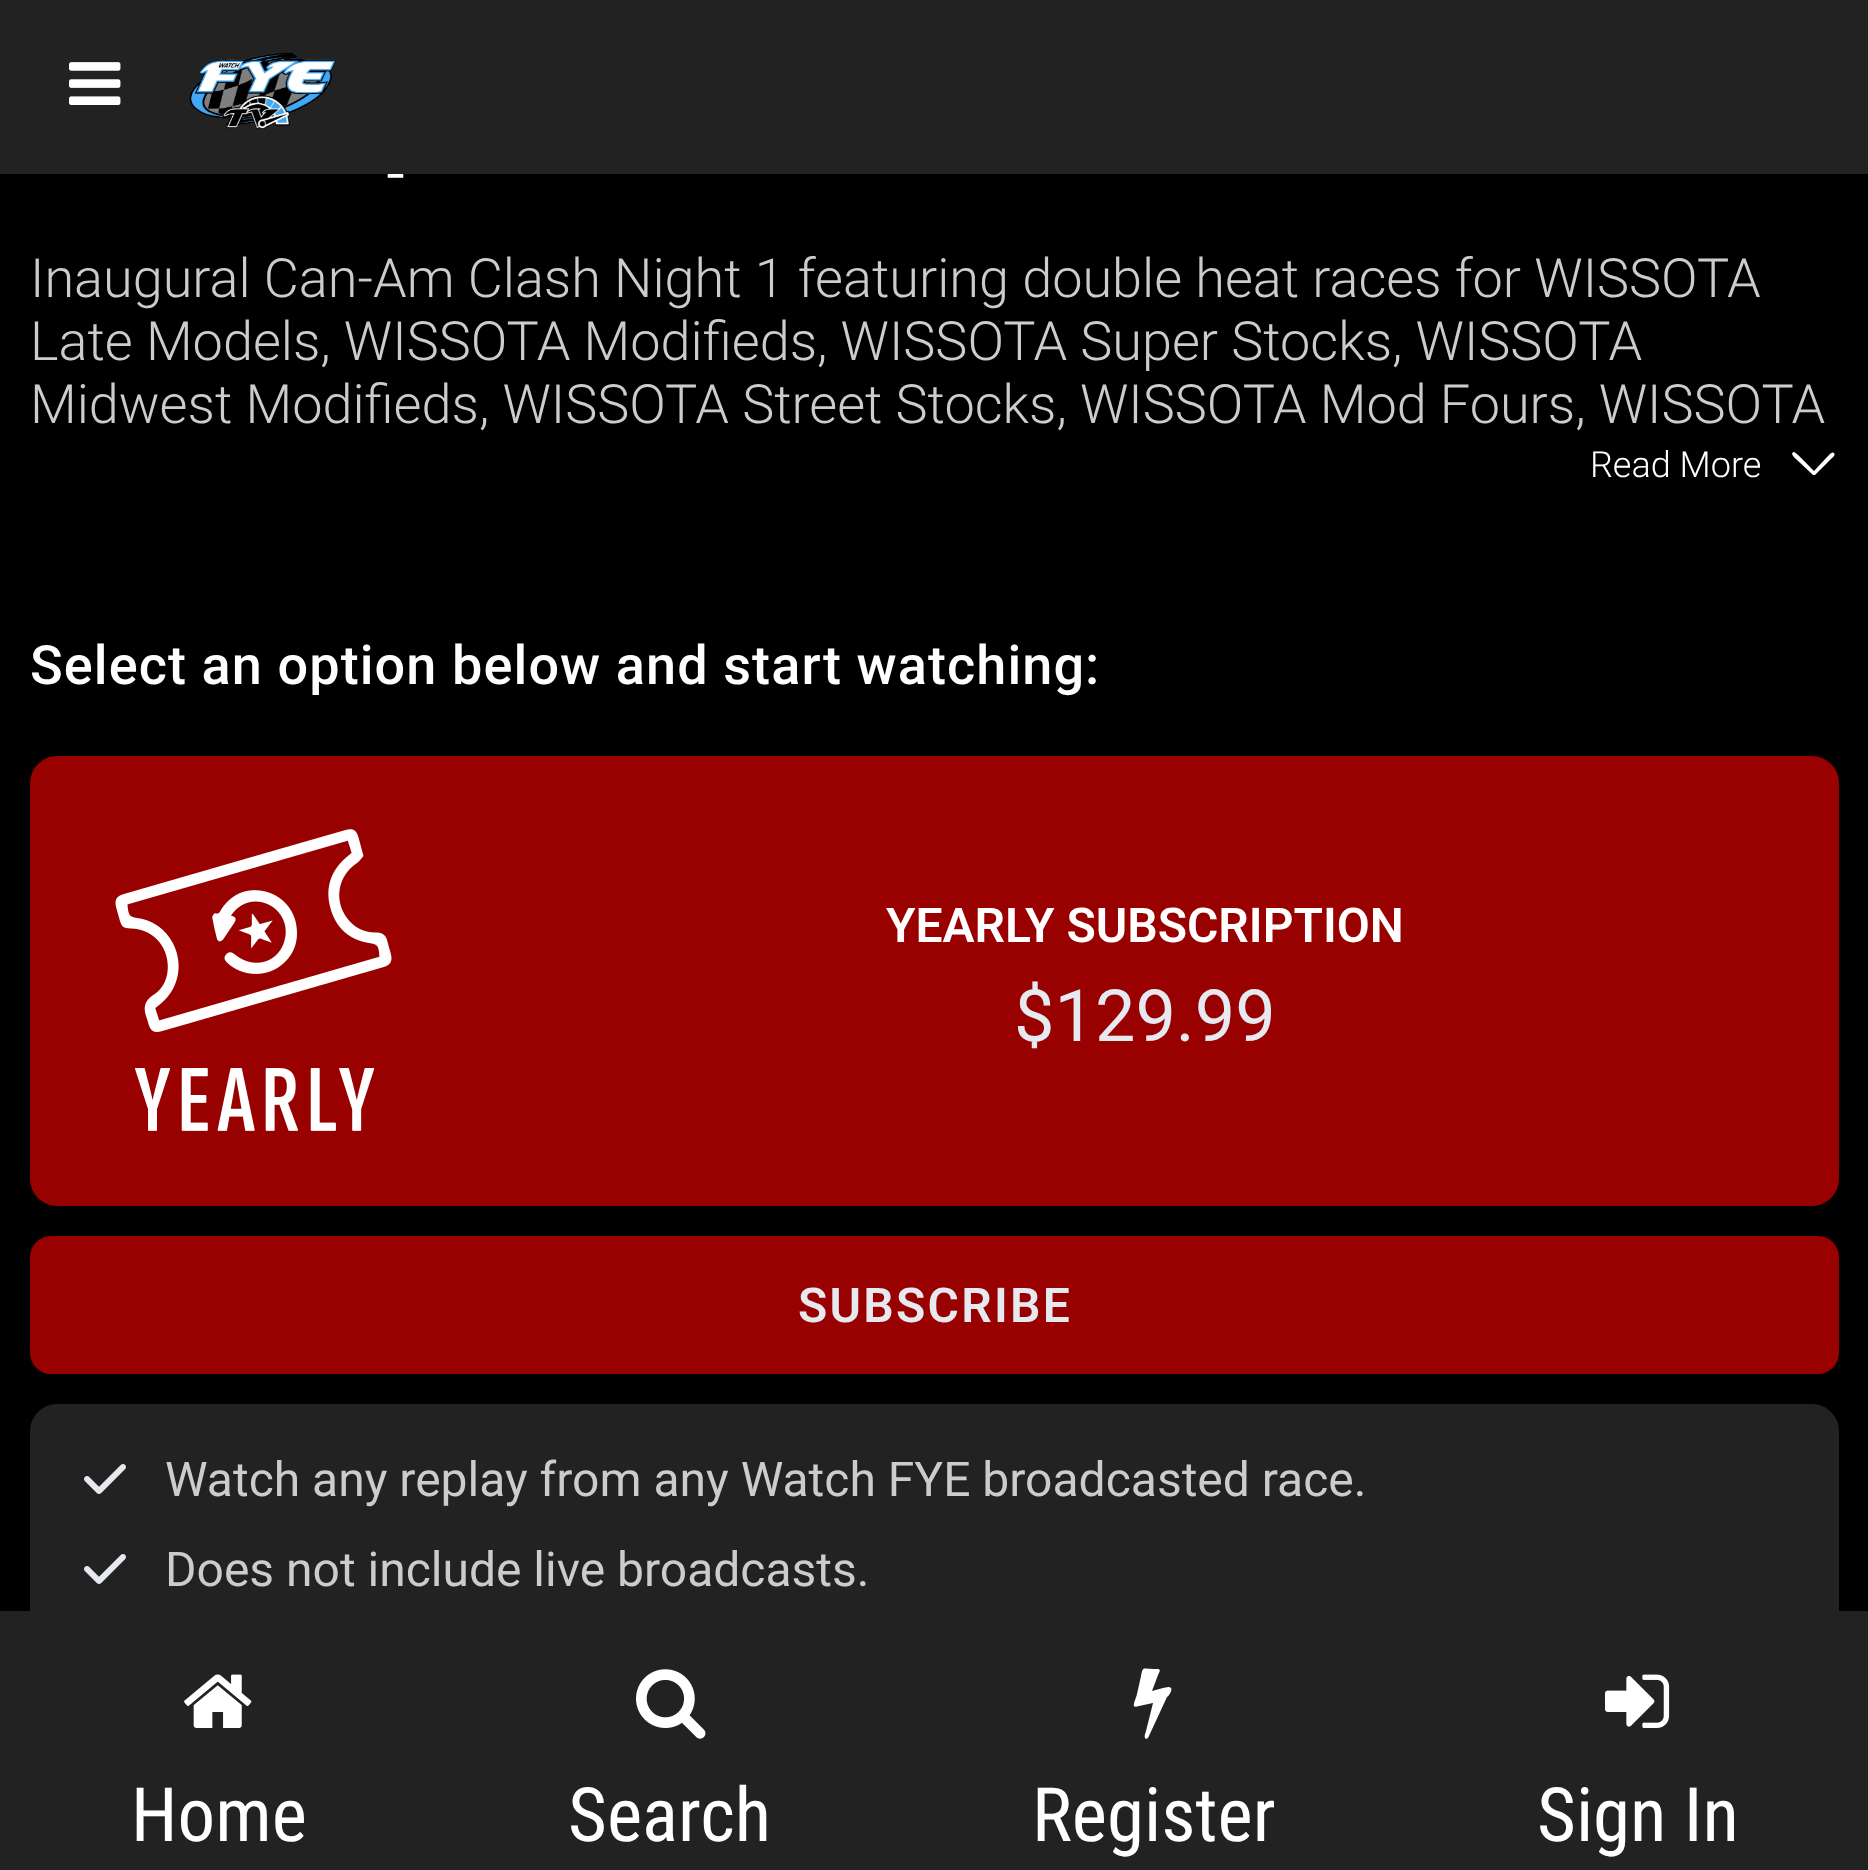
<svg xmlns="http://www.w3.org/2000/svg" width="1868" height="1870">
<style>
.a{font:72px Sofia Sans Extra Condensed;letter-spacing:3px;fill:#fff}
.b{font:300 54px Roboto;fill:#ccc}
.c{font:300 36px Roboto;fill:#fff}
.d{font:500 54px Roboto;letter-spacing:1.1px;fill:#fff}
.e{font:600 48px Roboto;fill:#fff}
.f{font:72px Roboto;fill:#e6e9ef}
.g{font:600 48px Roboto;letter-spacing:2.25px;fill:#e6e9ef}
.h{font:48px Roboto;fill:#ccc}
.i{font:75px Roboto Condensed;fill:#fff}
</style>
<rect width="100%" height="100%" fill="#000"/>
<path fill="#222" d="M0 0h1868v174H0z"/>
<image href="1.png" x="69" y="62" width="52" height="43"/>
<image href="2.png" x="189" y="52" width="148" height="79"/>
<path fill="#fff" fill-rule="evenodd" d="M1815 475h-2l-17-16c0 0-7-6-2-7c2 0 17 16 20 19l14-15c1-1 4-5 6-3c2 2-2 5-3 6z"/>
<rect fill="#900" x="30" y="756" width="1809" height="450" rx="27"/>
<image href="3.png" x="115" y="829" width="277" height="302"/>
<rect fill="#900" x="30" y="1236" width="1809" height="138" rx="21"/>
<rect fill="#222" x="30" y="1404" width="1809" height="420" rx="27"/>
<image href="4.png" x="84" y="1464" width="42" height="30"/>
<image href="4.png" x="84" y="1554" width="42" height="30"/>
<path fill="#222" d="M0 1611h1868v259H0z"/>
<image href="5.png" x="184" y="1674" width="68" height="54"/>
<image href="6.png" x="636" y="1669" width="70" height="70"/>
<path fill="#fff" d="M1171 1688c-2-2-6 0-8 0l-11 3l6-16c3-6 3-6-5-6c-10 0-10-3-12 7l-4 18c-2 8-7 15 2 12l14-3l-7 28c0 1-3 6 0 8l2-1l19-41c1 0 6-7 4-9z"/>
<image href="7.png" x="1605" y="1674" width="65" height="54"/>
<text class="a" x="385" y="195">-</text>
<text class="b" x="30" y="297">Inaugural Can-Am Clash Night 1 featuring double heat races for WISSOTA</text>
<text class="b" x="30" y="360">Late Models, WISSOTA Modifieds, WISSOTA Super Stocks, WISSOTA</text>
<text class="b" x="30" y="423">Midwest Modifieds, WISSOTA Street Stocks, WISSOTA Mod Fours, WISSOTA</text>
<text class="c" x="1590" y="477">Read More</text>
<text class="d" x="30" y="684">Select an option below and start watching:</text>
<text class="e" x="886" y="942">YEARLY SUBSCRIPTION</text>
<text class="f" x="1014" y="1041">$129.99</text>
<text class="g" x="798" y="1322">SUBSCRIBE</text>
<text class="h" x="165" y="1496">Watch any replay from any Watch FYE broadcasted race.</text>
<text class="h" x="165" y="1586">Does not include live broadcasts.</text>
<text class="i" x="131" y="1841">Home</text>
<text class="i" x="568" y="1841">Search</text>
<text class="i" x="1032" y="1841">Register</text>
<text class="i" x="1537" y="1841">Sign In</text>
</svg>
